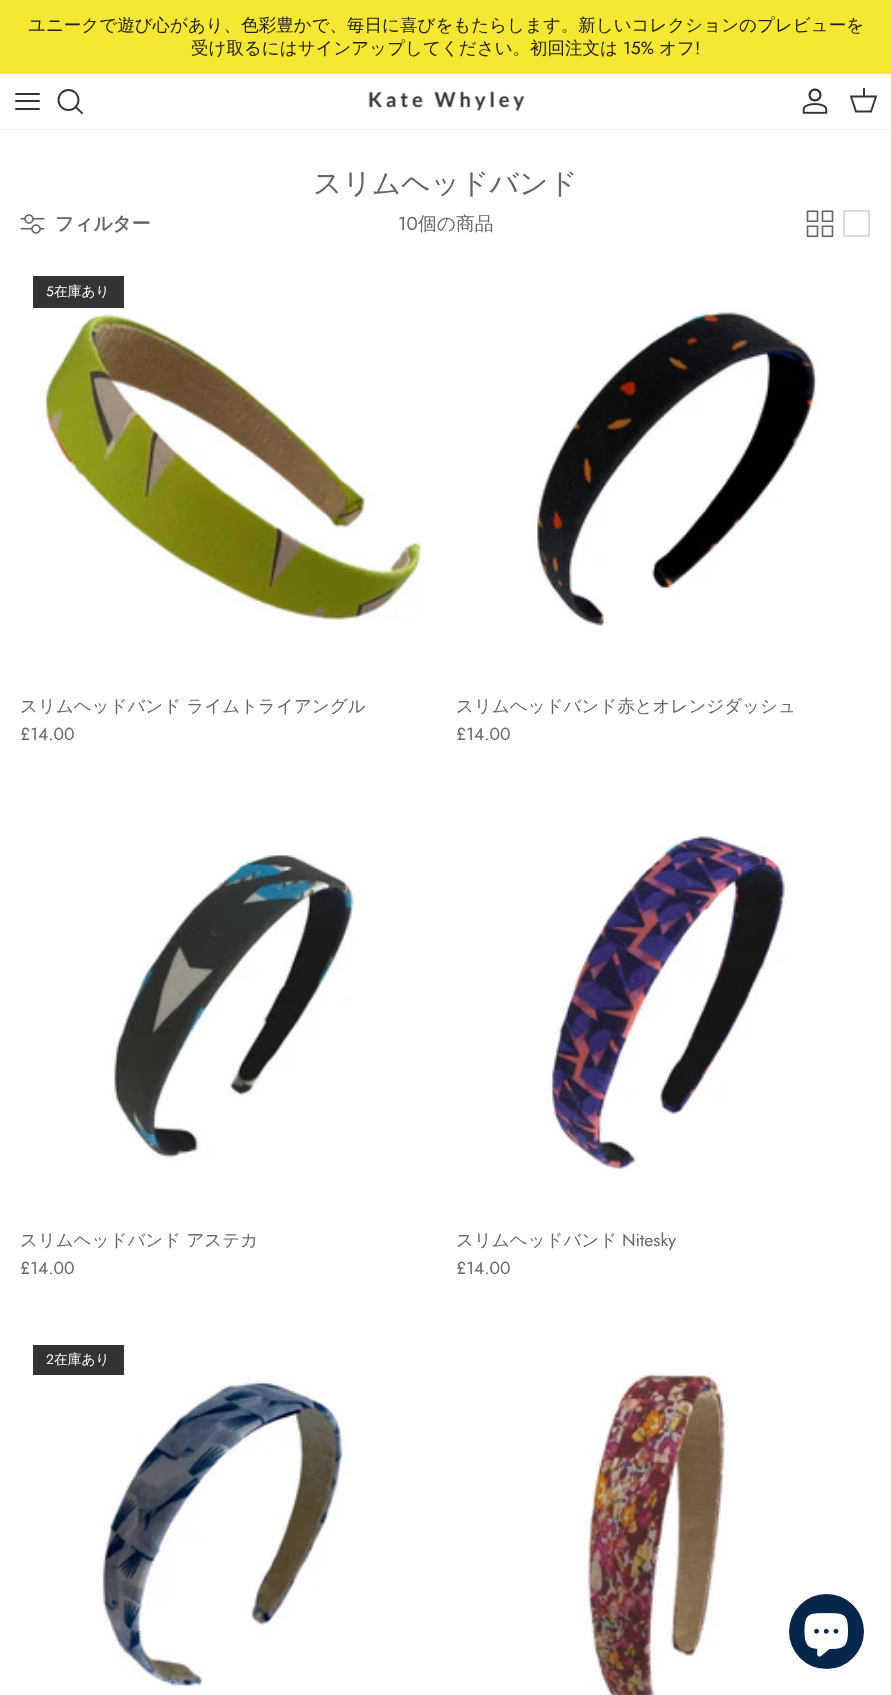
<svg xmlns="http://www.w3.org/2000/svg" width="891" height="1695">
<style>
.a{font:500 17.5px WenQuanYi Zen Hei;fill:#212121}
.b{font:17.5px Jost;fill:#212121}
.c{font:500 28.75px WenQuanYi Zen Hei;fill:#666}
.d{font:bold 18.75px WenQuanYi Zen Hei;fill:#666}
.e{font:18.75px Jost;fill:#666}
.f{font:500 18.75px WenQuanYi Zen Hei;fill:#666}
.g{font:13.75px Jost;fill:#fff}
.h{font:500 13.75px WenQuanYi Zen Hei;fill:#fff}
.i{font:500 17.5px WenQuanYi Zen Hei;fill:#666}
.j{font:17.5px Jost;fill:#666}
</style>
<rect width="100%" height="100%" fill="#fff"/>
<path fill="#f6e732" d="M0 0h891v74H0z"/>
<path fill="#eee" d="M0 129h891v1H0z"/>
<path fill="none" stroke="#333" stroke-width="1.9" stroke-linecap="round" stroke-linejoin="round" d="M16 101h23m-23-7h23m-23 15h23"/>
<circle fill="none" stroke="#333" stroke-width="1.9" cx="68.5" cy="100" r="10"/>
<path fill="none" stroke="#333" stroke-width="1.9" stroke-linecap="square" d="M76 107.5l6 5.5"/>
<image href="1.png" x="368" y="91" width="157" height="20"/>
<image href="2.png" x="802" y="88" width="26" height="26"/>
<path fill="none" stroke="#333" stroke-width="1.9" d="M851 96.5h25l-5 15h-15z"/>
<path fill="#333333f2" d="M863 88h2v9H863z"/>
<image href="3.png" x="20" y="214" width="25" height="20"/>
<image href="4.png" x="806" y="210" width="28" height="28"/>
<path fill="none" stroke="#d1d1d1" stroke-width="1.6" stroke-linecap="round" stroke-linejoin="round" d="M844 211h25v25h-25v-25"/>
<path fill="#333" d="M33 276h91v32H33z"/>
<image href="5.png" x="35" y="309" width="388" height="313"/>
<image href="6.png" x="532" y="309" width="287" height="317"/>
<image href="7.png" x="111" y="852" width="244" height="309"/>
<image href="8.png" x="547" y="836" width="242" height="340"/>
<path fill="#333" d="M33 1345h91v30H33z"/>
<image href="9.png" x="102" y="1378" width="250" height="313"/>
<image href="10.png" x="581" y="1370" width="147" height="325"/>
<circle fill="#07264b" cx="826.5" cy="1631.5" r="37.5"/>
<image href="11.png" x="804" y="1613" width="44" height="44"/>
<text class="a" x="28" y="31">ユニークで遊び心があり、色彩豊かで、毎日に喜びをもたらします。新しいコレクションのプレビューを</text>
<text class="a" x="191" y="54">受け取るにはサインアップしてください。初回注文は</text>
<text class="b" x="623" y="54">15%</text>
<text class="a" x="659" y="54">オフ</text>
<text class="b" x="695" y="54">!</text>
<text class="c" x="313" y="193">スリムヘッドバンド</text>
<text class="d" x="55" y="230">フィルター</text>
<text class="e" x="398" y="230">10</text>
<text class="f" x="418" y="230">個の商品</text>
<text class="g" x="46" y="296">5</text>
<text class="h" x="54" y="296">在庫あり</text>
<text class="i" x="20" y="712">スリムヘッドバンド ライムトライアングル</text>
<text class="j" x="20" y="740">£14.00</text>
<text class="i" x="456" y="712">スリムヘッドバンド赤とオレンジダッシュ</text>
<text class="j" x="456" y="740">£14.00</text>
<text class="i" x="20" y="1246">スリムヘッドバンド アステカ</text>
<text class="j" x="20" y="1274">£14.00</text>
<text class="i" x="456" y="1246">スリムヘッドバンド</text>
<text class="j" x="622" y="1246">Nitesky</text>
<text class="j" x="456" y="1274">£14.00</text>
<text class="g" x="46" y="1364">2</text>
<text class="h" x="54" y="1364">在庫あり</text>
</svg>
